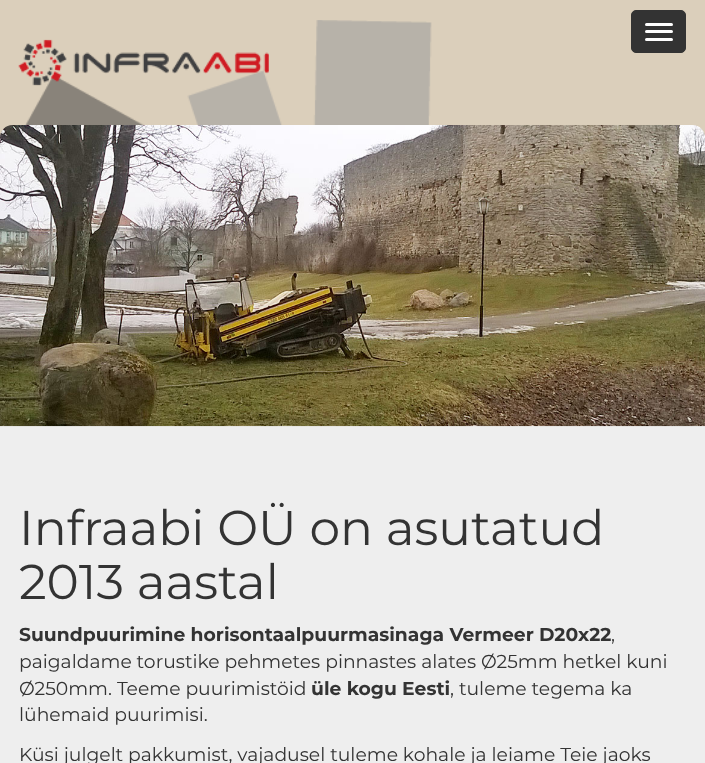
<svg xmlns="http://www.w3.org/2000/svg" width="705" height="763">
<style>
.a{font:48.75px Montserrat;fill:#333}
.b{font:bold 18.75px Montserrat;fill:#333}
.c{font:18.75px Montserrat;fill:#333}
</style>
<rect width="100%" height="100%" fill="#dbcfbb"/>
<image href="1.png" x="25" y="20" width="407" height="105"/>
<rect fill="#333" stroke="#333" x="631.5" y="10.5" width="54" height="42" rx="4.5"/>
<rect fill="#fff" x="645" y="23" width="28" height="3" rx="1.5"/>
<rect fill="#fff" x="645" y="30" width="28" height="3" rx="1.5"/>
<rect fill="#fff" x="645" y="38" width="28" height="3" rx="1.5"/>
<image href="2.png" x="18" y="39" width="251" height="47"/>
<path fill="#eee" d="M0 426h705v337H0z"/>
<image href="3.png" x="0" y="125" width="705" height="302"/>
<text class="a" x="19" y="545">Infraabi OÜ on asutatud</text>
<text class="a" x="19" y="599">2013 aastal</text>
<text class="b" x="19" y="641">Suundpuurimine horisontaalpuurmasinaga Vermeer D20x22</text>
<text class="c" x="611" y="641">,</text>
<text class="c" x="19" y="668">paigaldame torustike pehmetes pinnastes alates Ø25mm hetkel kuni</text>
<text class="c" x="19" y="695">Ø250mm. Teeme puurimistöid</text>
<text class="b" x="311" y="695">üle kogu Eesti</text>
<text class="c" x="450" y="695">, tuleme tegema ka</text>
<text class="c" x="19" y="721">lühemaid puurimisi.</text>
<text class="c" x="19" y="761">Küsi julgelt pakkumist, vajadusel tuleme kohale ja leiame Teie jaoks</text>
</svg>
